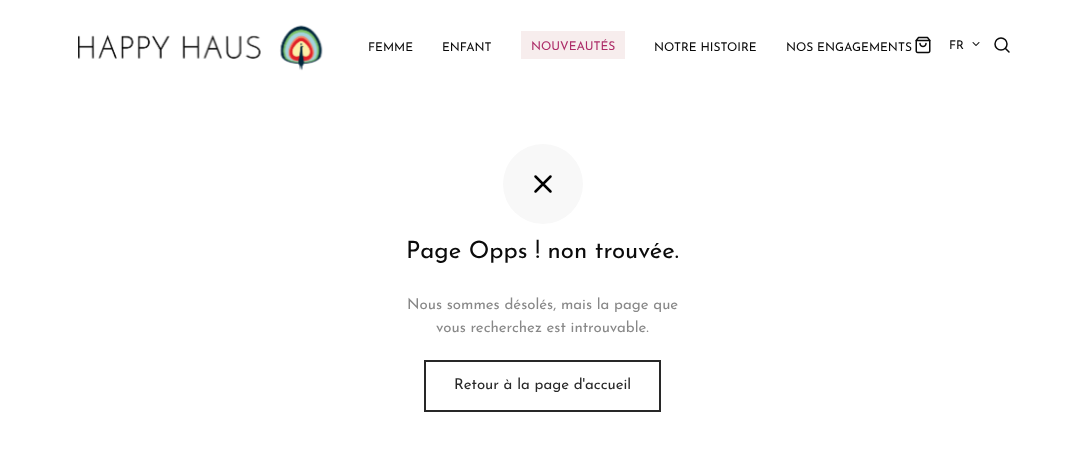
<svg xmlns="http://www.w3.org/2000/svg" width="1085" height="453">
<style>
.a{font:100 12px Josefin Sans;fill:#0a0a0a}
.b{font:100 12px Josefin Sans;fill:#ad2c68}
.c{font:100 24px Josefin Sans;fill:#0a0a0a}
.d{font:100 15px Josefin Sans;fill:#888}
.e{font:100 15px Josefin Sans;fill:#282828}
</style>
<rect width="100%" height="100%" fill="#fff"/>
<image href="1.png" x="78" y="25" width="245" height="46"/>
<path fill="#f7eded" d="M521 31h104v28H521z"/>
<image href="2.png" x="915" y="36" width="16" height="18"/>
<image href="3.png" x="972" y="42" width="8" height="4"/>
<circle fill="none" stroke="#0a0a0a" stroke-width="1.5" cx="1001" cy="44" r="6"/>
<path fill="none" stroke="#0a0a0a" stroke-width="1.5" stroke-linecap="round" stroke-linejoin="round" d="M1009 52l-3.5-3.5"/>
<circle fill="#f8f8f8" cx="543" cy="184" r="40"/>
<path fill="none" stroke="#000" stroke-width="2.5" stroke-linecap="round" stroke-linejoin="round" d="M550.5 176.5l-15 15m0-15l15 15"/>
<path fill="none" stroke="#282828" stroke-width="2" d="M425 361h235v50H425z"/>
<text class="a" x="368" y="51">FEMME</text>
<text class="a" x="442" y="51">ENFANT</text>
<text class="b" x="531" y="50">NOUVEAUTÉS</text>
<text class="a" x="654" y="51">NOTRE HISTOIRE</text>
<text class="a" x="786" y="51">NOS ENGAGEMENTS</text>
<text class="a" x="949" y="49">FR</text>
<text class="c" x="406" y="258">Page Opps ! non trouvée.</text>
<text class="d" x="407" y="309">Nous sommes désolés, mais la page que</text>
<text class="d" x="436" y="332">vous recherchez est introuvable.</text>
<text class="e" x="454" y="389">Retour à la page d'accueil</text>
</svg>
